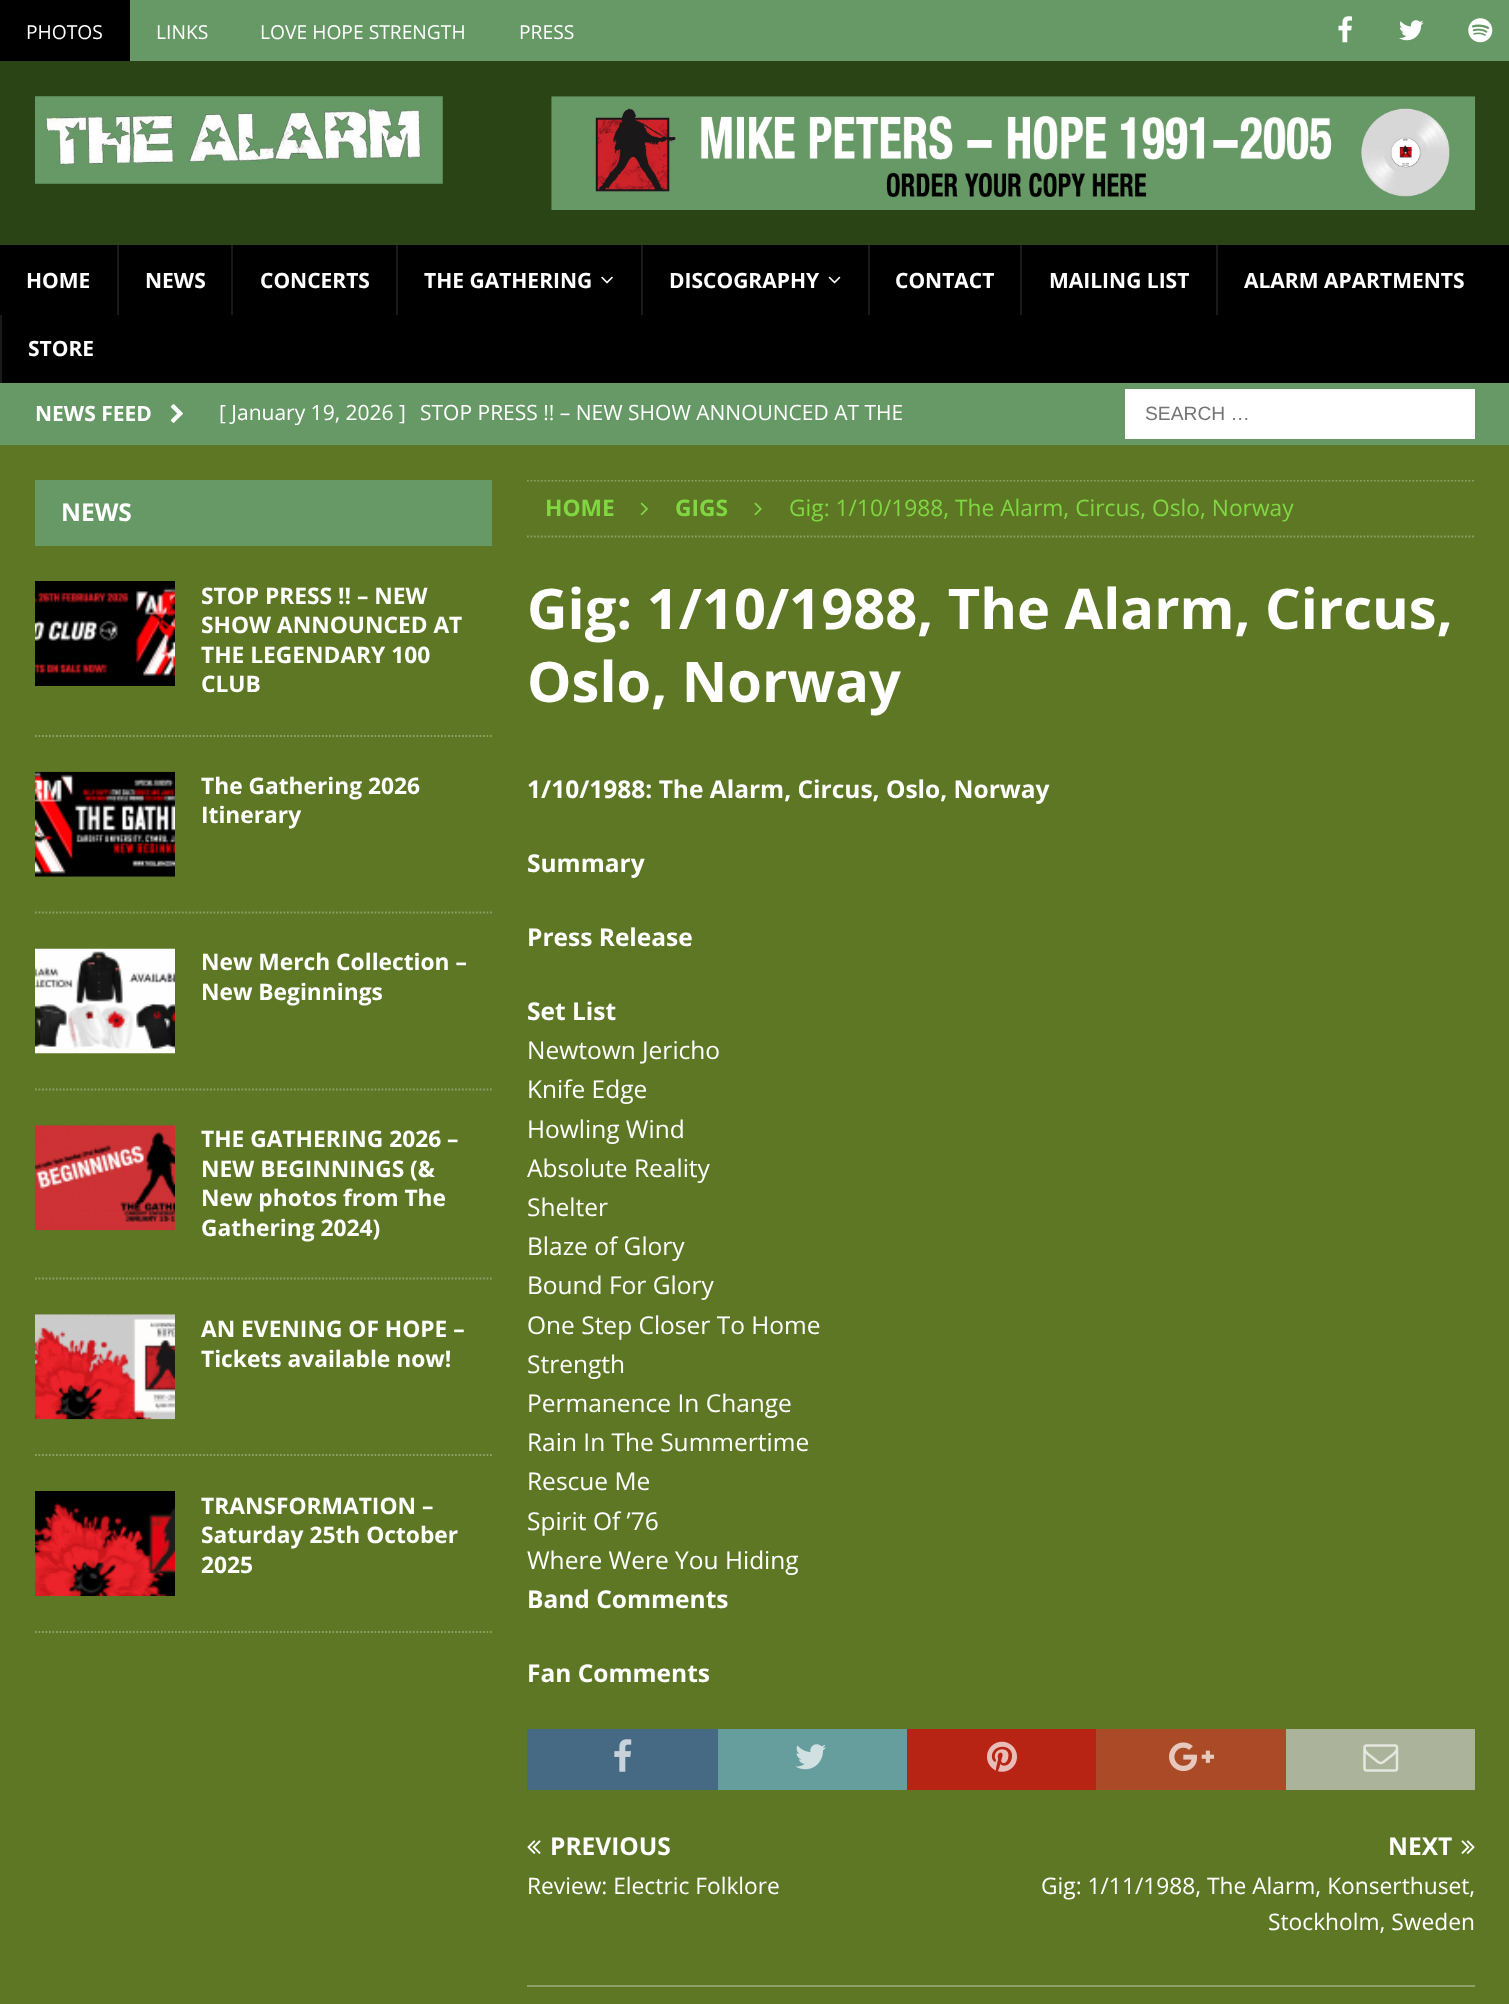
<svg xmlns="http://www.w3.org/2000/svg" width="1509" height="2004">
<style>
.a{font:19.25px Open Sans;fill:#fff}
.b{font:bold 21px Open Sans;fill:#fff}
.c{font:21px Open Sans;fill:#fff}
.d{font:19.25px Liberation Sans;fill:#757575}
.e{font:bold 24.5px Open Sans;fill:#fff}
.f{font:bold 22.75px Open Sans;fill:#fff}
.g{font:bold 22.75px Open Sans;fill:#81d742}
.h{font:22.75px Open Sans;fill:#81d742}
.i{font:bold 56px Open Sans;fill:#fff}
.j{font:24.5px Open Sans;fill:#fff}
.k{font:22.75px Open Sans;fill:#fff}
</style>
<defs>
<clipPath id="clip1"><path d="M527 480h948v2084H527z"/></clipPath>
</defs>
<rect width="100%" height="100%" fill="#696"/>
<path fill="#000" d="M0 0h130v61H0z"/>
<image href="1.png" x="1338" y="16" width="14" height="27"/>
<image href="2.png" x="1399" y="20" width="25" height="21"/>
<image href="3.png" x="1468" y="18" width="25" height="25"/>
<path fill="#2a4415" d="M0 61h1509v184H0z"/>
<image href="4.png" x="35" y="96" width="408" height="88"/>
<image href="5.png" x="551" y="96" width="925" height="114"/>
<path fill="#000" d="M0 245h1509v138H0z"/>
<path fill="#1a1a1a" d="M117 245h2v70H117z"/>
<path fill="#1a1a1a" d="M231 245h2v70H231z"/>
<path fill="#1a1a1a" d="M396 245h2v70H396z"/>
<image href="6.png" x="601" y="276" width="12" height="8"/>
<path fill="#1a1a1a" d="M641 245h2v70H641z"/>
<image href="7.png" x="828" y="276" width="13" height="8"/>
<path fill="#1a1a1a" d="M868 245h2v70H868z"/>
<path fill="#1a1a1a" d="M1020 245h2v70H1020z"/>
<path fill="#1a1a1a" d="M1216 245h2v70H1216z"/>
<path fill="#1a1a1a" d="M0 315h2v68H0z"/>
<image href="8.png" x="170" y="404" width="13" height="19"/>
<path fill="#fff" d="M1125 389h350v50H1125z"/>
<path fill="#5d7725" d="M0 445h1509v1559H0z"/>
<path fill="#696" d="M35 480h457v66H35z"/>
<path fill="none" stroke="#8ea066" stroke-width="1.8" stroke-dasharray="1.75 1.75" d="M35 736h457"/>
<image href="9.png" x="35" y="581" width="140" height="105"/>
<path fill="none" stroke="#8ea066" stroke-width="1.8" stroke-dasharray="1.75 1.75" d="M35 912.5h457"/>
<image href="10.png" x="35" y="771" width="140" height="106"/>
<path fill="none" stroke="#8ea066" stroke-width="1.8" stroke-dasharray="1.75 1.75" d="M35 1089.5h457"/>
<image href="11.png" x="35" y="948" width="140" height="106"/>
<path fill="none" stroke="#8ea066" stroke-width="1.8" stroke-dasharray="1.75 1.75" d="M35 1278.5h457"/>
<image href="12.png" x="35" y="1125" width="140" height="106"/>
<path fill="none" stroke="#8ea066" stroke-width="1.8" stroke-dasharray="1.75 1.75" d="M35 1455h457"/>
<image href="13.png" x="35" y="1314" width="140" height="106"/>
<path fill="none" stroke="#8ea066" stroke-width="1.8" stroke-dasharray="1.75 1.75" d="M35 1632h457"/>
<image href="14.png" x="35" y="1491" width="140" height="105"/>
<g clip-path="url(#clip1)">
<path fill="none" stroke="#8ea066" stroke-width="1.8" stroke-dasharray="1.75 1.75" d="M527 480.5h948"/>
</g>
<path fill="none" stroke="#8ea066" stroke-width="1.8" stroke-dasharray="1.75 1.75" d="M527 536.5h948"/>
<image href="15.png" x="640" y="502" width="8" height="14"/>
<image href="16.png" x="754" y="502" width="8" height="14"/>
<path fill="#476a84" d="M527 1729h191v61H527z"/>
<image href="17.png" x="614" y="1739" width="18" height="33"/>
<path fill="#669d9d" d="M718 1729h189v61H718z"/>
<image href="18.png" x="795" y="1744" width="31" height="26"/>
<path fill="#b72414" d="M907 1729h189v61H907z"/>
<image href="19.png" x="987" y="1741" width="30" height="31"/>
<path fill="#ab4a26" d="M1096 1729h190v61H1096z"/>
<image href="20.png" x="1169" y="1742" width="45" height="30"/>
<path fill="#abb39a" d="M1286 1729h189v61H1286z"/>
<image href="21.png" x="1363" y="1744" width="36" height="28"/>
<path fill="#8ea066" d="M527 1985h948v2H527z"/>
<image href="22.png" x="527" y="1840" width="14" height="14"/>
<image href="23.png" x="1461" y="1840" width="14" height="14"/>
<text class="a" x="26" y="39">PHOTOS</text>
<text class="a" x="156" y="39">LINKS</text>
<text class="a" x="260" y="39">LOVE HOPE STRENGTH</text>
<text class="a" x="519" y="39">PRESS</text>
<text class="b" x="26" y="288">HOME</text>
<text class="b" x="145" y="288">NEWS</text>
<text class="b" x="260" y="288">CONCERTS</text>
<text class="b" x="424" y="288">THE GATHERING</text>
<text class="b" x="669" y="288">DISCOGRAPHY</text>
<text class="b" x="895" y="288">CONTACT</text>
<text class="b" x="1049" y="288">MAILING LIST</text>
<text class="b" x="1244" y="288">ALARM APARTMENTS</text>
<text class="b" x="28" y="356">STORE</text>
<text class="b" x="35" y="421">NEWS FEED</text>
<text class="c" x="219" y="420">[ January 19, 2026 ]</text>
<text class="c" x="420" y="420">STOP PRESS !! – NEW SHOW ANNOUNCED AT THE</text>
<text class="d" x="1145" y="420">SEARCH …</text>
<text class="e" x="61" y="521">NEWS</text>
<text class="f" x="201" y="604">STOP PRESS !! – NEW</text>
<text class="f" x="201" y="633">SHOW ANNOUNCED AT</text>
<text class="f" x="201" y="663">THE LEGENDARY 100</text>
<text class="f" x="201" y="692">CLUB</text>
<text class="f" x="201" y="794">The Gathering 2026</text>
<text class="f" x="201" y="823">Itinerary</text>
<text class="f" x="201" y="970">New Merch Collection –</text>
<text class="f" x="201" y="1000">New Beginnings</text>
<text class="f" x="201" y="1147">THE GATHERING 2026 –</text>
<text class="f" x="201" y="1177">NEW BEGINNINGS (&amp;</text>
<text class="f" x="201" y="1206">New photos from The</text>
<text class="f" x="201" y="1236">Gathering 2024)</text>
<text class="f" x="201" y="1337">AN EVENING OF HOPE –</text>
<text class="f" x="201" y="1367">Tickets available now!</text>
<text class="f" x="201" y="1514">TRANSFORMATION –</text>
<text class="f" x="201" y="1543">Saturday 25th October</text>
<text class="f" x="201" y="1573">2025</text>
<text class="g" x="545" y="516">HOME</text>
<text class="g" x="675" y="516">GIGS</text>
<text class="h" x="789" y="516">Gig: 1/10/1988, The Alarm, Circus, Oslo, Norway</text>
<text class="i" x="527" y="629">Gig: 1/10/1988, The Alarm, Circus,</text>
<text class="i" x="527" y="702">Oslo, Norway</text>
<text class="e" x="527" y="798">1/10/1988: The Alarm, Circus, Oslo, Norway</text>
<text class="e" x="527" y="872">Summary</text>
<text class="e" x="527" y="946">Press Release</text>
<text class="e" x="527" y="1020">Set List</text>
<text class="j" x="527" y="1059">Newtown Jericho</text>
<text class="j" x="527" y="1098">Knife Edge</text>
<text class="j" x="527" y="1138">Howling Wind</text>
<text class="j" x="527" y="1177">Absolute Reality</text>
<text class="j" x="527" y="1216">Shelter</text>
<text class="j" x="527" y="1255">Blaze of Glory</text>
<text class="j" x="527" y="1294">Bound For Glory</text>
<text class="j" x="527" y="1334">One Step Closer To Home</text>
<text class="j" x="527" y="1373">Strength</text>
<text class="j" x="527" y="1412">Permanence In Change</text>
<text class="j" x="527" y="1451">Rain In The Summertime</text>
<text class="j" x="527" y="1490">Rescue Me</text>
<text class="j" x="527" y="1530">Spirit Of ’76</text>
<text class="j" x="527" y="1569">Where Were You Hiding</text>
<text class="e" x="527" y="1608">Band Comments</text>
<text class="e" x="527" y="1682">Fan Comments</text>
<text class="e" x="550" y="1855">PREVIOUS</text>
<text class="k" x="527" y="1894">Review: Electric Folklore</text>
<text class="e" x="1388" y="1855">NEXT</text>
<text class="k" x="1041" y="1894">Gig: 1/11/1988, The Alarm, Konserthuset,</text>
<text class="k" x="1268" y="1930">Stockholm, Sweden</text>
</svg>
